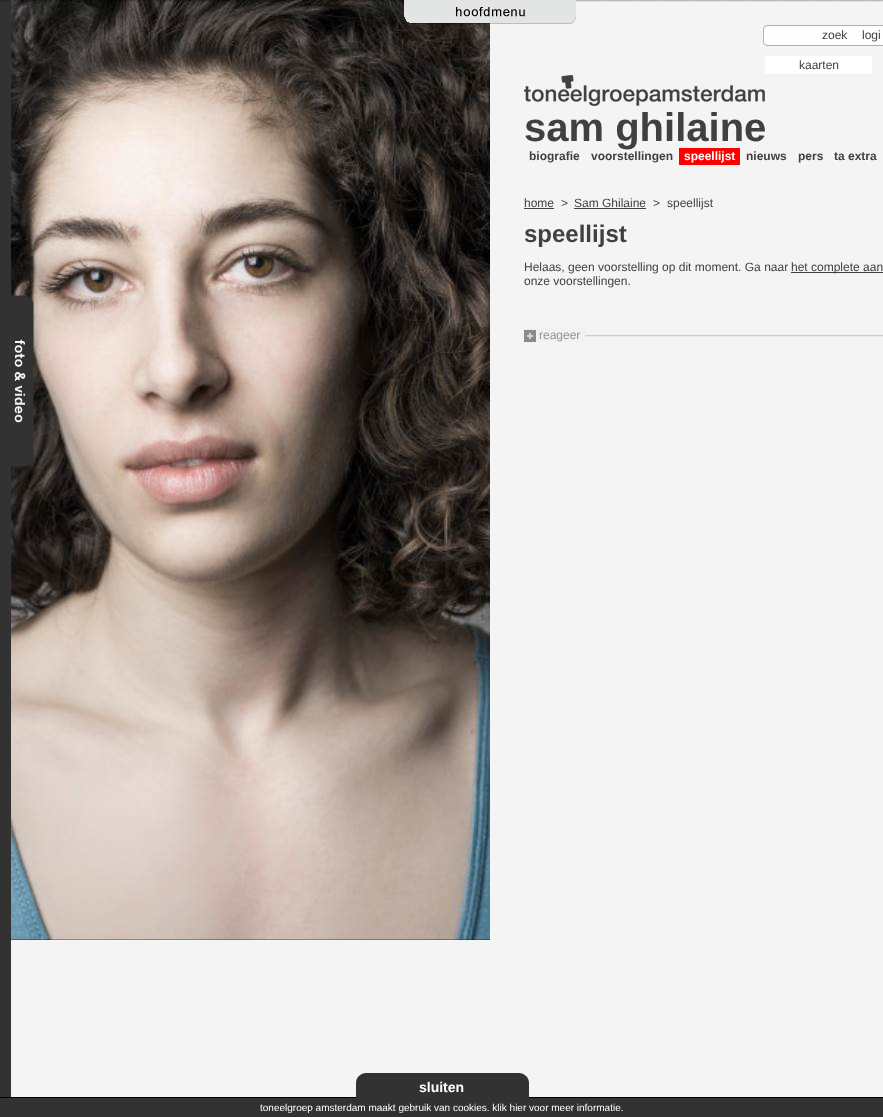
<svg xmlns="http://www.w3.org/2000/svg" width="883" height="1117">
<style>
.a{font:12px Liberation Sans;fill:#404040}
.b{font:bold 40px Liberation Sans;fill:#404040}
.c{font:bold 12px Liberation Sans;fill:#404040}
.d{font:bold 12px Liberation Sans;fill:#fff}
.e{font:bold 24px Liberation Sans;fill:#404040}
.f{font:12px Liberation Sans;fill:#929292}
.g{font:bold 14px Liberation Sans;fill:#fff}
.h{font:10px Liberation Sans;fill:#fff}
</style>
<rect width="100%" height="100%" fill="#f4f4f4"/>
<path fill="#323232" d="M0 0h11v1117H0z"/>
<image href="5.png" x="11" y="0" width="479" height="940"/>
<image href="1.png" x="0" y="0" width="404" height="2"/>
<image href="2.png" x="404" y="0" width="172" height="24"/>
<image href="3.png" x="576" y="0" width="307" height="2"/>
<image href="4.png" x="11" y="295" width="23" height="172"/>
<image href="6.png" x="763" y="25" width="120" height="21"/>
<image href="7.png" x="763" y="25" width="120" height="21"/>
<path fill="#fff" d="M765 56h107v18H765z"/>
<image href="8.png" x="524" y="75" width="241" height="31"/>
<path fill="#f00" d="M679 148h61v17H679z"/>
<path fill="#404040" d="M524 208h30v1H524z"/>
<path fill="#404040" d="M574 208h72v1H574z"/>
<path fill="#404040" d="M791 272h92v1H791z"/>
<image href="9.png" x="585" y="335" width="298" height="2"/>
<path fill="#f1f1f1" d="M524 328h61v14H524z"/>
<image href="10.png" x="524" y="330" width="12" height="12"/>
<path fill="#000" d="M0 1097h883v1H0z"/>
<image href="11.png" x="356" y="1073" width="173" height="25"/>
<path fill="#323232" d="M11 1098h872v19H11z"/>
<text class="a" x="822" y="39">zoek</text>
<text class="a" x="862" y="39">logi</text>
<text class="a" x="799" y="69">kaarten</text>
<text class="b" x="524" y="141">sam ghilaine</text>
<text class="c" x="529" y="160">biografie</text>
<text class="c" x="591" y="160">voorstellingen</text>
<text class="d" x="684" y="160">speellijst</text>
<text class="c" x="746" y="160">nieuws</text>
<text class="c" x="798" y="160">pers</text>
<text class="c" x="834" y="160">ta extra</text>
<text class="a" x="524" y="207">home</text>
<text class="a" x="561" y="207">&gt;</text>
<text class="a" x="574" y="207">Sam Ghilaine</text>
<text class="a" x="653" y="207">&gt;</text>
<text class="a" x="667" y="207">speellijst</text>
<text class="e" x="524" y="242">speellijst</text>
<text class="a" x="524" y="271">Helaas, geen voorstelling op dit moment. Ga naar</text>
<text class="a" x="791" y="271">het complete aan</text>
<text class="a" x="524" y="285">onze voorstellingen.</text>
<text class="f" x="539" y="339">reageer</text>
<text class="g" x="419" y="1092">sluiten</text>
<text class="h" x="260" y="1111">toneelgroep amsterdam maakt gebruik van cookies. klik hier voor meer informatie.</text>
</svg>
